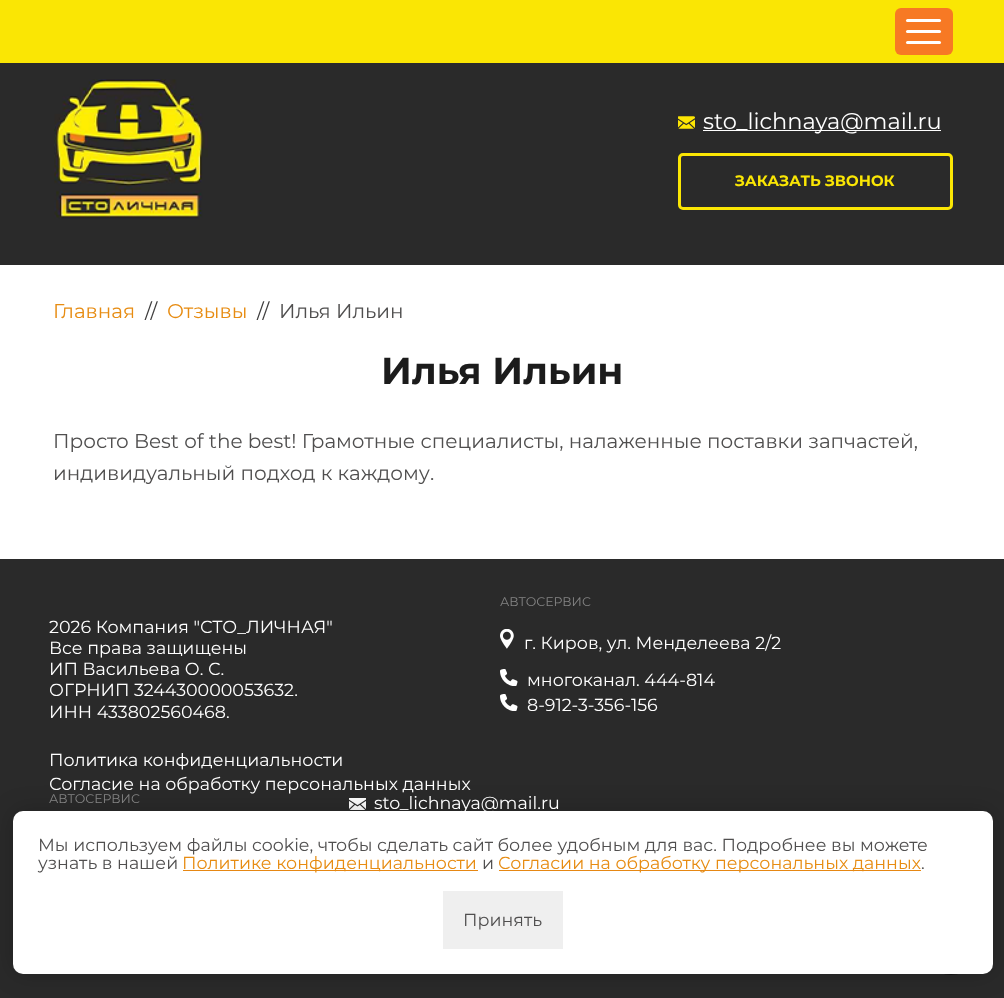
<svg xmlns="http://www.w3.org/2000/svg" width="1004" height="998">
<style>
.a{font:22.5px Montserrat;fill:#fff}
.b{font:bold 15px Montserrat;fill:#fae604}
.c{font:20px Montserrat;fill:#e78c12}
.d{font:20px Montserrat;fill:#3e3d3d}
.e{font:20px Montserrat;fill:#504f4f}
.f{font:bold 37.5px Montserrat;fill:#1b1b1b}
.g{font:17.5px Montserrat;fill:#fff}
.h{font:12.5px Montserrat;fill:#848484}
.i{font:17.5px Montserrat;fill:#504f4f}
.j{font:17.5px Montserrat;fill:#e78c12}
</style>
<rect width="100%" height="100%" fill="#fff"/>
<path fill="#fae604" d="M0 0h1004v63H0z"/>
<rect fill="#f77924" x="895" y="8" width="58" height="47" rx="6"/>
<rect fill="#fff" x="906" y="19" width="35" height="3" rx="1.5"/>
<rect fill="#fff" x="906" y="30" width="35" height="3" rx="1.5"/>
<rect fill="#fff" x="906" y="41" width="35" height="3" rx="1.5"/>
<path fill="#2a2a2a" d="M0 63h1004v202H0z"/>
<image href="1.png" x="54" y="79" width="154" height="140"/>
<image href="2.png" x="678" y="116" width="17" height="13"/>
<path fill="#fff" d="M703 130h238v1H703z"/>
<rect fill="none" stroke="#fae604" stroke-width="3" x="679.5" y="154.5" width="272" height="54" rx="3.5"/>
<path fill="#2a2a2a" d="M0 559h1004v439H0z"/>
<image href="3.png" x="500" y="629" width="14" height="20"/>
<image href="4.png" x="500" y="669" width="18" height="17"/>
<image href="4.png" x="500" y="694" width="18" height="17"/>
<image href="5.png" x="349" y="798" width="17" height="12"/>
<circle fill="none" stroke="#00000080" cx="951" cy="945" r="29.5"/>
<rect fill="#00000033" filter="blur(12.5px)" x="13" y="811" width="980" height="163" rx="10"/>
<rect fill="#fff" x="13" y="811" width="980" height="163" rx="10"/>
<path fill="#e68713" d="M183 870h295v1H183z"/>
<path fill="#e68713" d="M499 870h422v1H499z"/>
<path fill="#efefef" d="M443 891h120v58H443z"/>
<text class="a" x="703" y="129">sto_lichnaya@mail.ru</text>
<text class="b" x="735" y="186">ЗАКАЗАТЬ ЗВОНОК</text>
<text class="c" x="53" y="318">Главная</text>
<text class="d" x="145" y="318">//</text>
<text class="c" x="167" y="318">Отзывы</text>
<text class="d" x="257" y="318">//</text>
<text class="e" x="279" y="318">Илья Ильин</text>
<text class="f" x="381" y="384">Илья Ильин</text>
<text class="e" x="53" y="448">Просто Best of the best! Грамотные специалисты, налаженные поставки запчастей,</text>
<text class="e" x="53" y="480">индивидуальный подход к каждому.</text>
<text class="g" x="49" y="633">2026 Компания "СТО_ЛИЧНАЯ"</text>
<text class="g" x="49" y="654">Все права защищены</text>
<text class="g" x="49" y="675">ИП Васильева О. С.</text>
<text class="g" x="49" y="696">ОГРНИП 324430000053632.</text>
<text class="g" x="49" y="718">ИНН 433802560468.</text>
<text class="g" x="49" y="766">Политика конфиденциальности</text>
<text class="g" x="49" y="790">Согласие на обработку персональных данных</text>
<text class="h" x="500" y="606">АВТОСЕРВИС</text>
<text class="g" x="524" y="649">г. Киров, ул. Менделеева 2/2</text>
<text class="g" x="527" y="686">многоканал. 444-814</text>
<text class="g" x="527" y="711">8-912-3-356-156</text>
<text class="h" x="49" y="803">АВТОСЕРВИС</text>
<text class="g" x="374" y="809">sto_lichnaya@mail.ru</text>
<text class="i" x="38" y="851">Мы используем файлы cookie, чтобы сделать сайт более удобным для вас. Подробнее вы можете</text>
<text class="i" x="38" y="869">узнать в нашей</text>
<text class="j" x="182" y="869">Политике конфиденциальности</text>
<text class="i" x="482" y="869">и</text>
<text class="j" x="498" y="869">Согласии на обработку персональных данных</text>
<text class="i" x="921" y="869">.</text>
<text class="i" x="463" y="926">Принять</text>
</svg>
